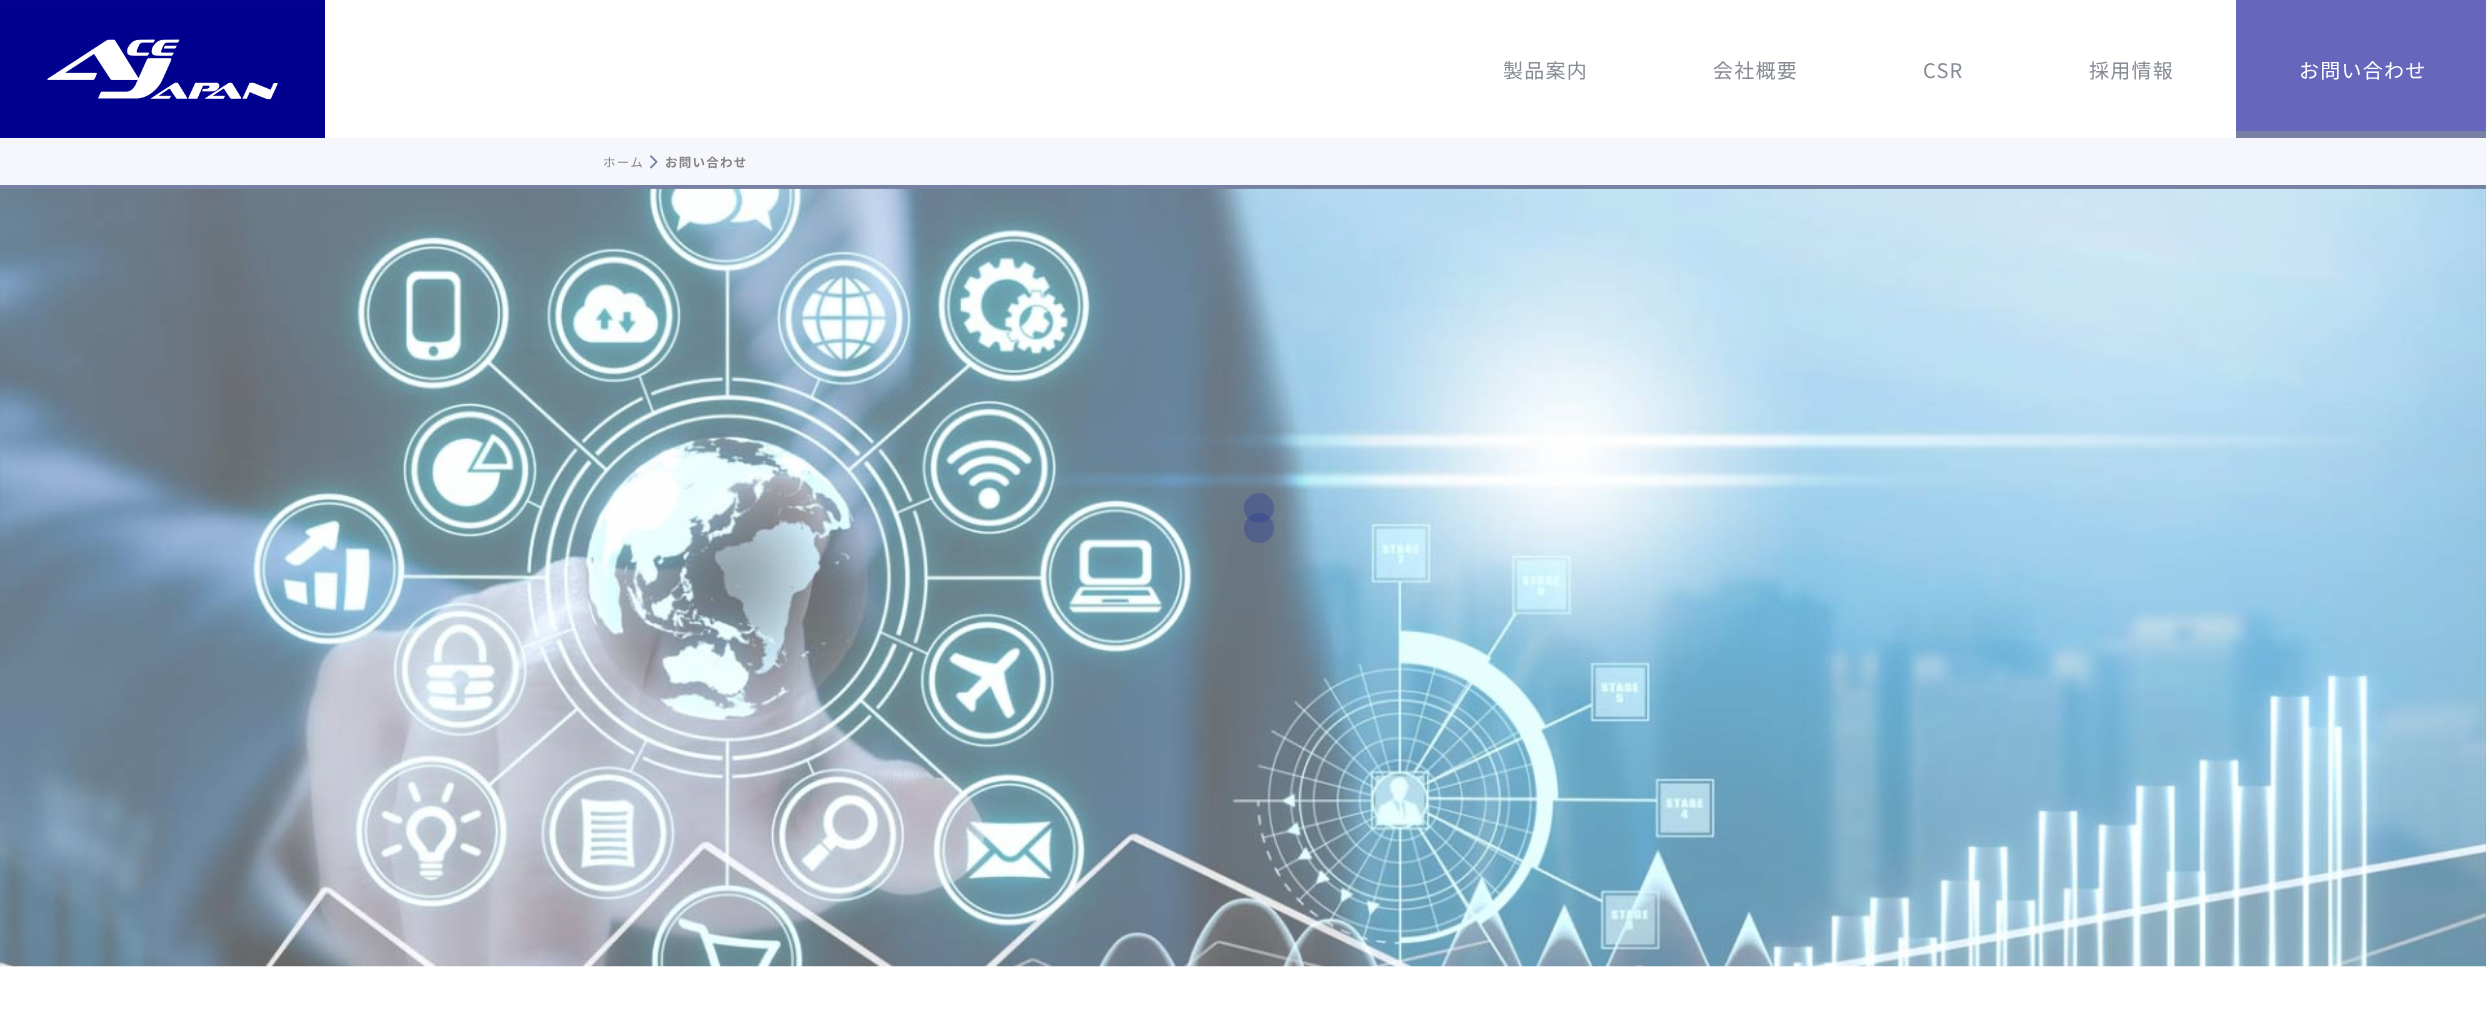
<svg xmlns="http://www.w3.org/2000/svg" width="2486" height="1034">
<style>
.a{font:20px Noto Sans JP;letter-spacing:1.25px;fill:#878c94}
.b{font:20px Noto Sans JP;letter-spacing:1.25px;fill:#fff}
.c{font:12.5px Noto Sans JP;letter-spacing:1.25px;fill:#858585}
.d{font:bold 12.5px Noto Sans JP;letter-spacing:1.25px;fill:#858585}
</style>
<rect width="100%" height="100%" fill="#fff"/>
<image href="1.png" x="0" y="0" width="325" height="138"/>
<path fill="#6667bc" d="M2236 0h250v131H2236z"/>
<path fill="#7781a3" d="M2236 131h250v7H2236z"/>
<path fill="#f5f7fc" d="M0 138h2486v47H0z"/>
<path fill="#7781a3" d="M0 185h2486v4H0z"/>
<image href="2.png" x="650" y="155" width="8" height="14"/>
<image href="3.png" x="0" y="188" width="2486" height="779"/>
<circle fill="#2d3f9566" cx="1259" cy="508" r="15"/>
<circle fill="#2d3f9566" cx="1259" cy="528" r="15"/>
<text class="a" x="1503" y="78">製品案内</text>
<text class="a" x="1713" y="78">会社概要</text>
<text class="a" x="1923" y="78">CSR</text>
<text class="a" x="2089" y="78">採用情報</text>
<text class="b" x="2299" y="78">お問い合わせ</text>
<text class="c" x="603" y="167">ホーム</text>
<text class="d" x="665" y="167">お問い合わせ</text>
</svg>
